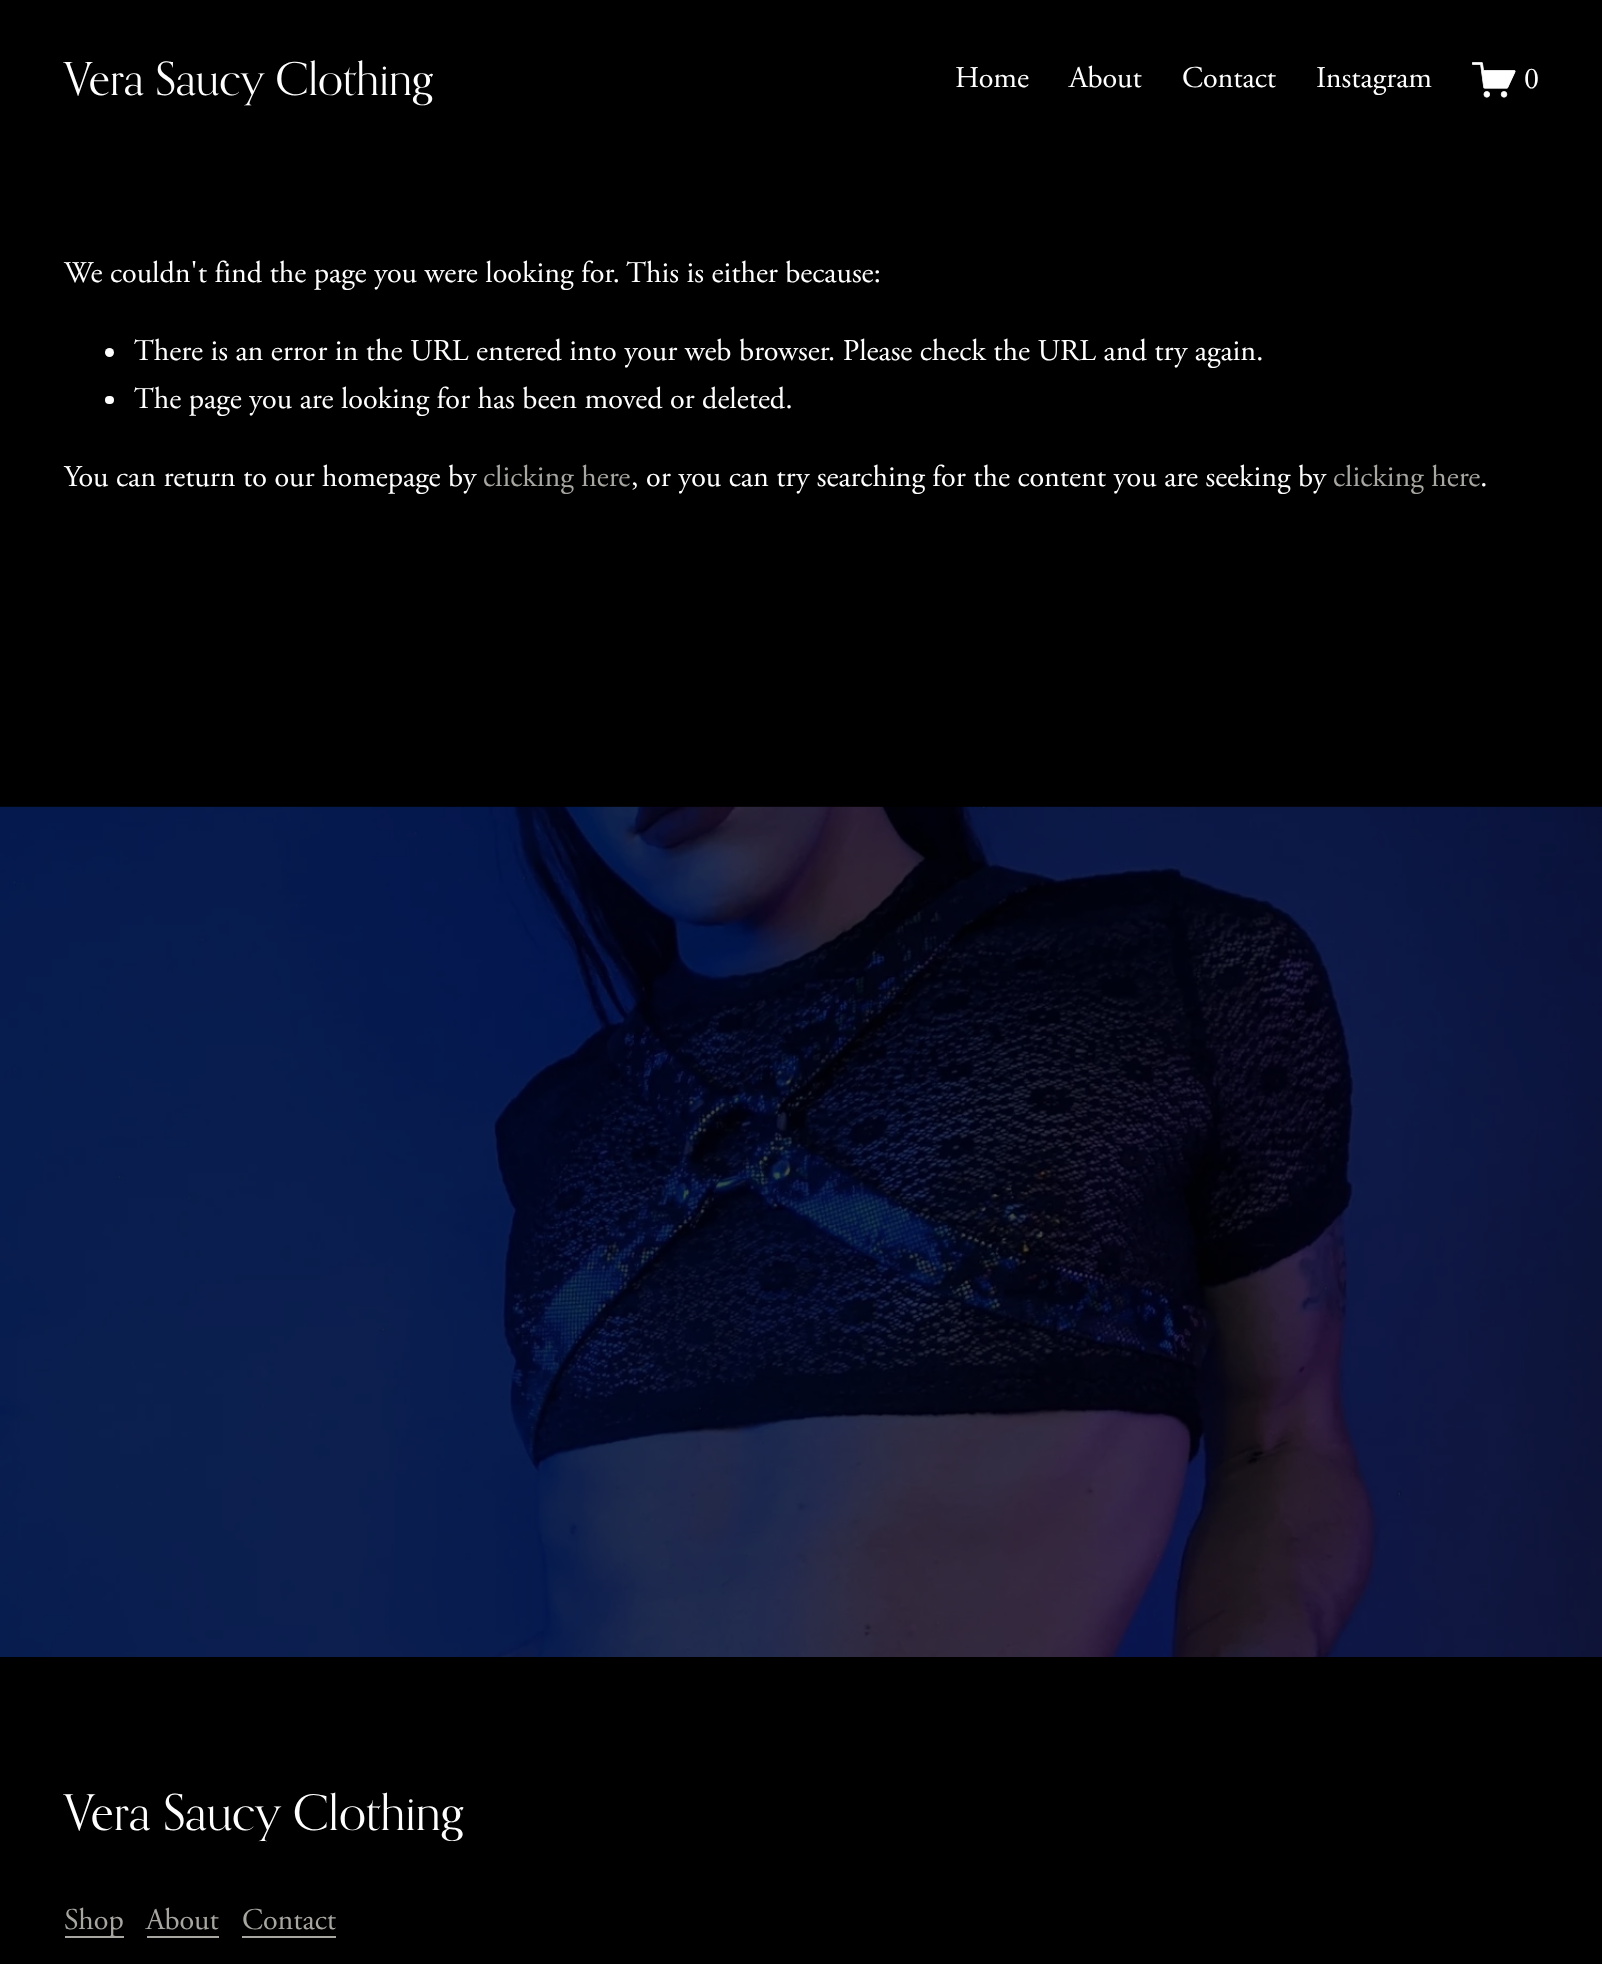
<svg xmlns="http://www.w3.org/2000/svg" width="1602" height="1964">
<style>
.a{font:45.5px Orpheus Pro;fill:#fff}
.b{font:30.1px Adobe Garamond;fill:#fff}
.c{font:30.1px Adobe Garamond;fill:#a8a6a1}
.d{font:49.25px Orpheus Pro;fill:#fff}
</style>
<rect width="100%" height="100%" fill="#000"/>
<image href="1.png" x="1472" y="62" width="44" height="36"/>
<circle fill="#fff" cx="109.5" cy="352.5" r="4.5"/>
<rect fill="#fff" x="105" y="396" width="9" height="8" rx="4"/>
<image href="2.png" x="0" y="806" width="1602" height="851"/>
<path fill="#a8a6a1" d="M65 1936h59v2H65z"/>
<path fill="#a8a6a1" d="M147 1936h72v2H147z"/>
<path fill="#a8a6a1" d="M242 1936h94v2H242z"/>
<text class="a" x="64" y="95">Vera Saucy Clothing</text>
<text class="b" x="955" y="87">Home</text>
<text class="b" x="1069" y="87">About</text>
<text class="b" x="1182" y="87">Contact</text>
<text class="b" x="1316" y="87">Instagram</text>
<text class="b" x="1524" y="88">0</text>
<text class="b" x="64" y="282">We couldn't find the page you were looking for. This is either because:</text>
<text class="b" x="134" y="360">There is an error in the URL entered into your web browser. Please check the URL and try again.</text>
<text class="b" x="134" y="408">The page you are looking for has been moved or deleted.</text>
<text class="b" x="64" y="486">You can return to our homepage by</text>
<text class="c" x="483" y="486">clicking here</text>
<text class="b" x="631" y="486">, or you can try searching for the content you are seeking by</text>
<text class="c" x="1333" y="486">clicking here</text>
<text class="b" x="1480" y="486">.</text>
<text class="d" x="64" y="1830">Vera Saucy Clothing</text>
<text class="c" x="64" y="1929">Shop</text>
<text class="c" x="146" y="1929">About</text>
<text class="c" x="242" y="1929">Contact</text>
</svg>
